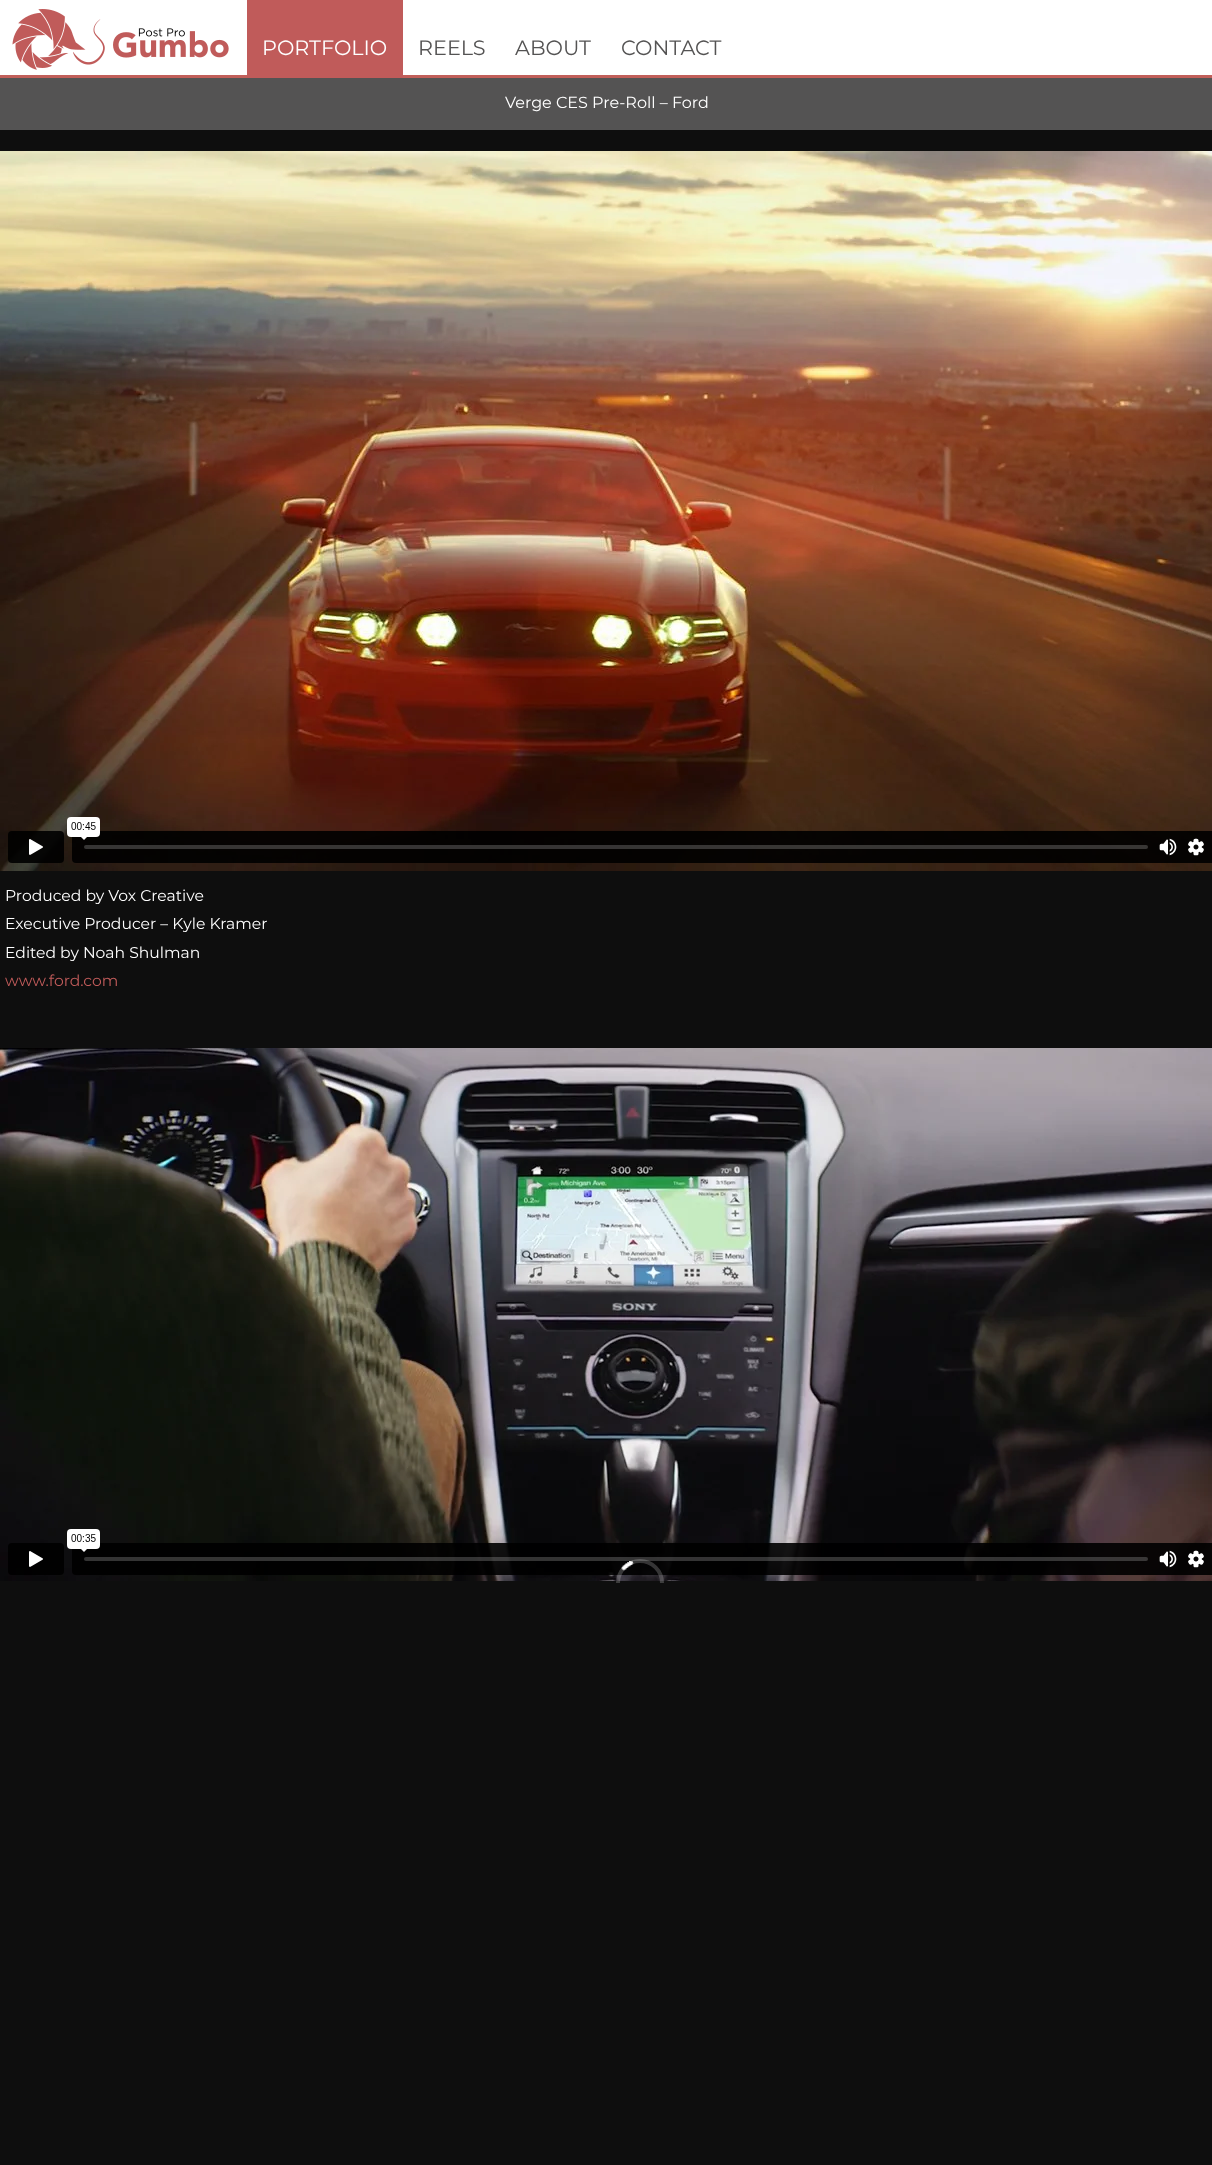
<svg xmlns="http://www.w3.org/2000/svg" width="1212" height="2165">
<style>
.a{font:100 20.75px Montserrat;fill:#fff}
.b{font:100 20.75px Montserrat;fill:#545353}
.c{font:100 16px Montserrat;fill:#fff}
.d{font:100 15.6px Montserrat;fill:#fff}
.e{font:100 15.6px Montserrat;fill:#c05b5a}
</style>
<rect width="100%" height="100%" fill="#0e0e0e"/>
<path fill="#fff" d="M0 0h1212v75H0z"/>
<image href="1.png" x="12" y="9" width="217" height="61"/>
<path fill="#c15f5a" d="M0 75h1212v3H0z"/>
<path fill="#c05b5a" d="M247 0h156v78H247z"/>
<path fill="#545353" d="M0 78h1212v52H0z"/>
<image href="2.png" x="0" y="151" width="1212" height="720"/>
<image href="3.png" x="0" y="1048" width="1212" height="535"/>
<text class="a" x="262" y="55">PORTFOLIO</text>
<text class="b" x="418" y="55">REELS</text>
<text class="b" x="515" y="55">ABOUT</text>
<text class="b" x="621" y="55">CONTACT</text>
<text class="c" x="505" y="108">Verge CES Pre-Roll – Ford</text>
<text class="d" x="5" y="901">Produced by Vox Creative</text>
<text class="d" x="5" y="929">Executive Producer – Kyle Kramer</text>
<text class="d" x="5" y="958">Edited by Noah Shulman</text>
<text class="e" x="5" y="986">www.ford.com</text>
</svg>
